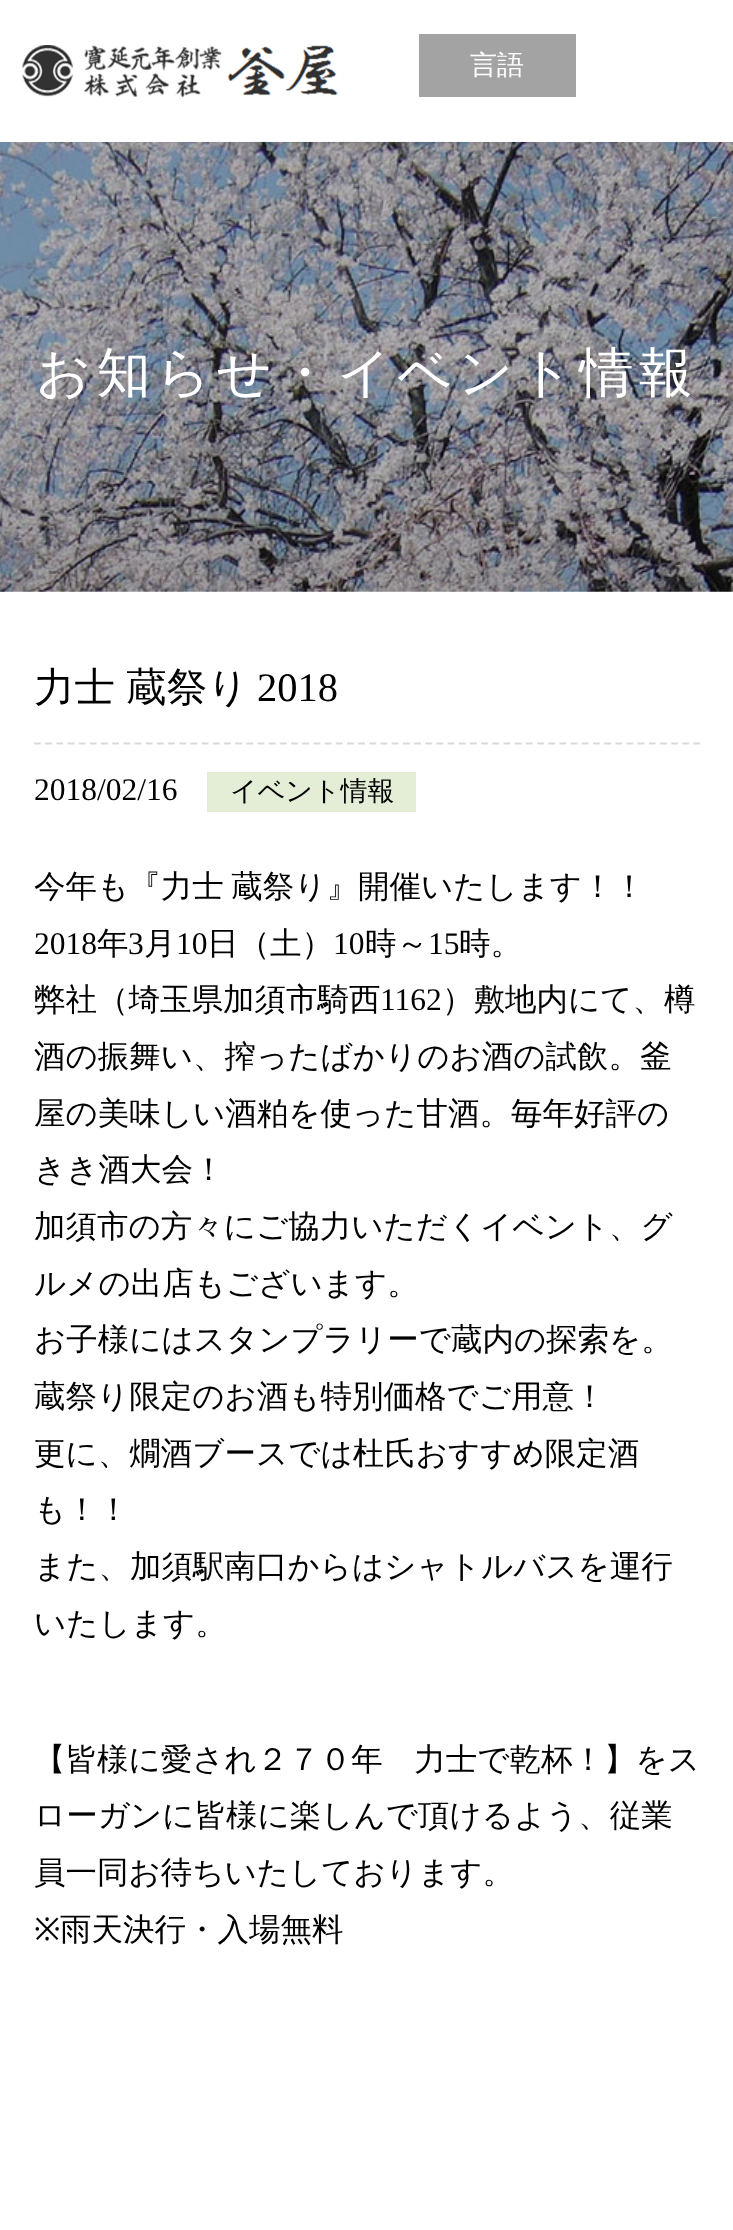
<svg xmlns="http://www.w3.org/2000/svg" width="733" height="2230">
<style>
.a{font:500 27px WenQuanYi Zen Hei;fill:#fff}
.b{font:500 54px WenQuanYi Zen Hei;letter-spacing:5.4px;fill:#fff}
.c{font:500 40.5px WenQuanYi Zen Hei;fill:#000}
.d{font:40.5px Liberation Serif;fill:#000}
.e{font:31.5px Liberation Serif;fill:#000}
.f{font:500 27px WenQuanYi Zen Hei;fill:#000}
.g{font:500 31.5px WenQuanYi Zen Hei;fill:#000}
.h{font:31.5px Noto Sans;fill:#000}
</style>
<rect width="100%" height="100%" fill="#fff"/>
<image href="1.png" x="22" y="45" width="316" height="52"/>
<path fill="#a3a3a3" d="M419 34h157v63H419z"/>
<image href="3.png" x="0" y="142" width="733" height="450"/>
<image href="2.png" x="174" y="141" width="383" height="7"/>
<path fill="none" stroke="#d9d9d9" stroke-width="2.2" stroke-dasharray="6.75 4.43" d="M34 743.5h666"/>
<path fill="#e4edd5" d="M207 772h209v40H207z"/>
<text class="a" x="470" y="74">言語</text>
<text class="b" x="36" y="391">お知らせ・イベント情報</text>
<text class="c" x="34" y="701" word-spacing="-1">力士 蔵祭り</text>
<text class="d" x="257" y="701">2018</text>
<text class="e" x="34" y="800">2018/02/16</text>
<text class="f" x="230" y="800">イベント情報</text>
<text class="g" x="34" y="897" word-spacing="-2">今年も『力士 蔵祭り』開催いたします！！</text>
<text class="e" x="34" y="954">2018</text>
<text class="g" x="97" y="954">年</text>
<text class="e" x="128" y="954">3</text>
<text class="g" x="144" y="954">月</text>
<text class="e" x="176" y="954">10</text>
<text class="g" x="207" y="954">日（土）</text>
<text class="e" x="333" y="954">10</text>
<text class="g" x="365" y="954">時～</text>
<text class="e" x="428" y="954">15</text>
<text class="g" x="459" y="954">時。</text>
<text class="g" x="34" y="1010">弊社（埼玉県加須市騎西</text>
<text class="e" x="380" y="1010">1162</text>
<text class="g" x="442" y="1010">）敷地内にて、樽</text>
<text class="g" x="34" y="1067">酒の振舞い、搾ったばかりのお酒の試飲。釜</text>
<text class="g" x="34" y="1124">屋の美味しい酒粕を使った甘酒。毎年好評の</text>
<text class="g" x="34" y="1180">きき酒大会！</text>
<text class="g" x="34" y="1237">加須市の方々にご協力いただくイベント、グ</text>
<text class="g" x="34" y="1294">ルメの出店もございます。</text>
<text class="g" x="34" y="1350">お子様にはスタンプラリーで蔵内の探索を。</text>
<text class="g" x="34" y="1407">蔵祭り限定のお酒も特別価格でご用意！</text>
<text class="g" x="34" y="1464">更に、燗酒ブースでは杜氏おすすめ限定酒</text>
<text class="g" x="34" y="1520">も！！</text>
<text class="g" x="34" y="1577">また、加須駅南口からはシャトルバスを運行</text>
<text class="g" x="34" y="1634">いたします。</text>
<text class="g" x="34" y="1770">【皆様に愛され２７０年　力士で乾杯！】をス</text>
<text class="g" x="34" y="1826">ローガンに皆様に楽しんで頂けるよう、従業</text>
<text class="g" x="34" y="1883">員一同お待ちいたしております。</text>
<text class="h" x="34" y="1940">※</text>
<text class="g" x="60" y="1940">雨天決行・入場無料</text>
</svg>
